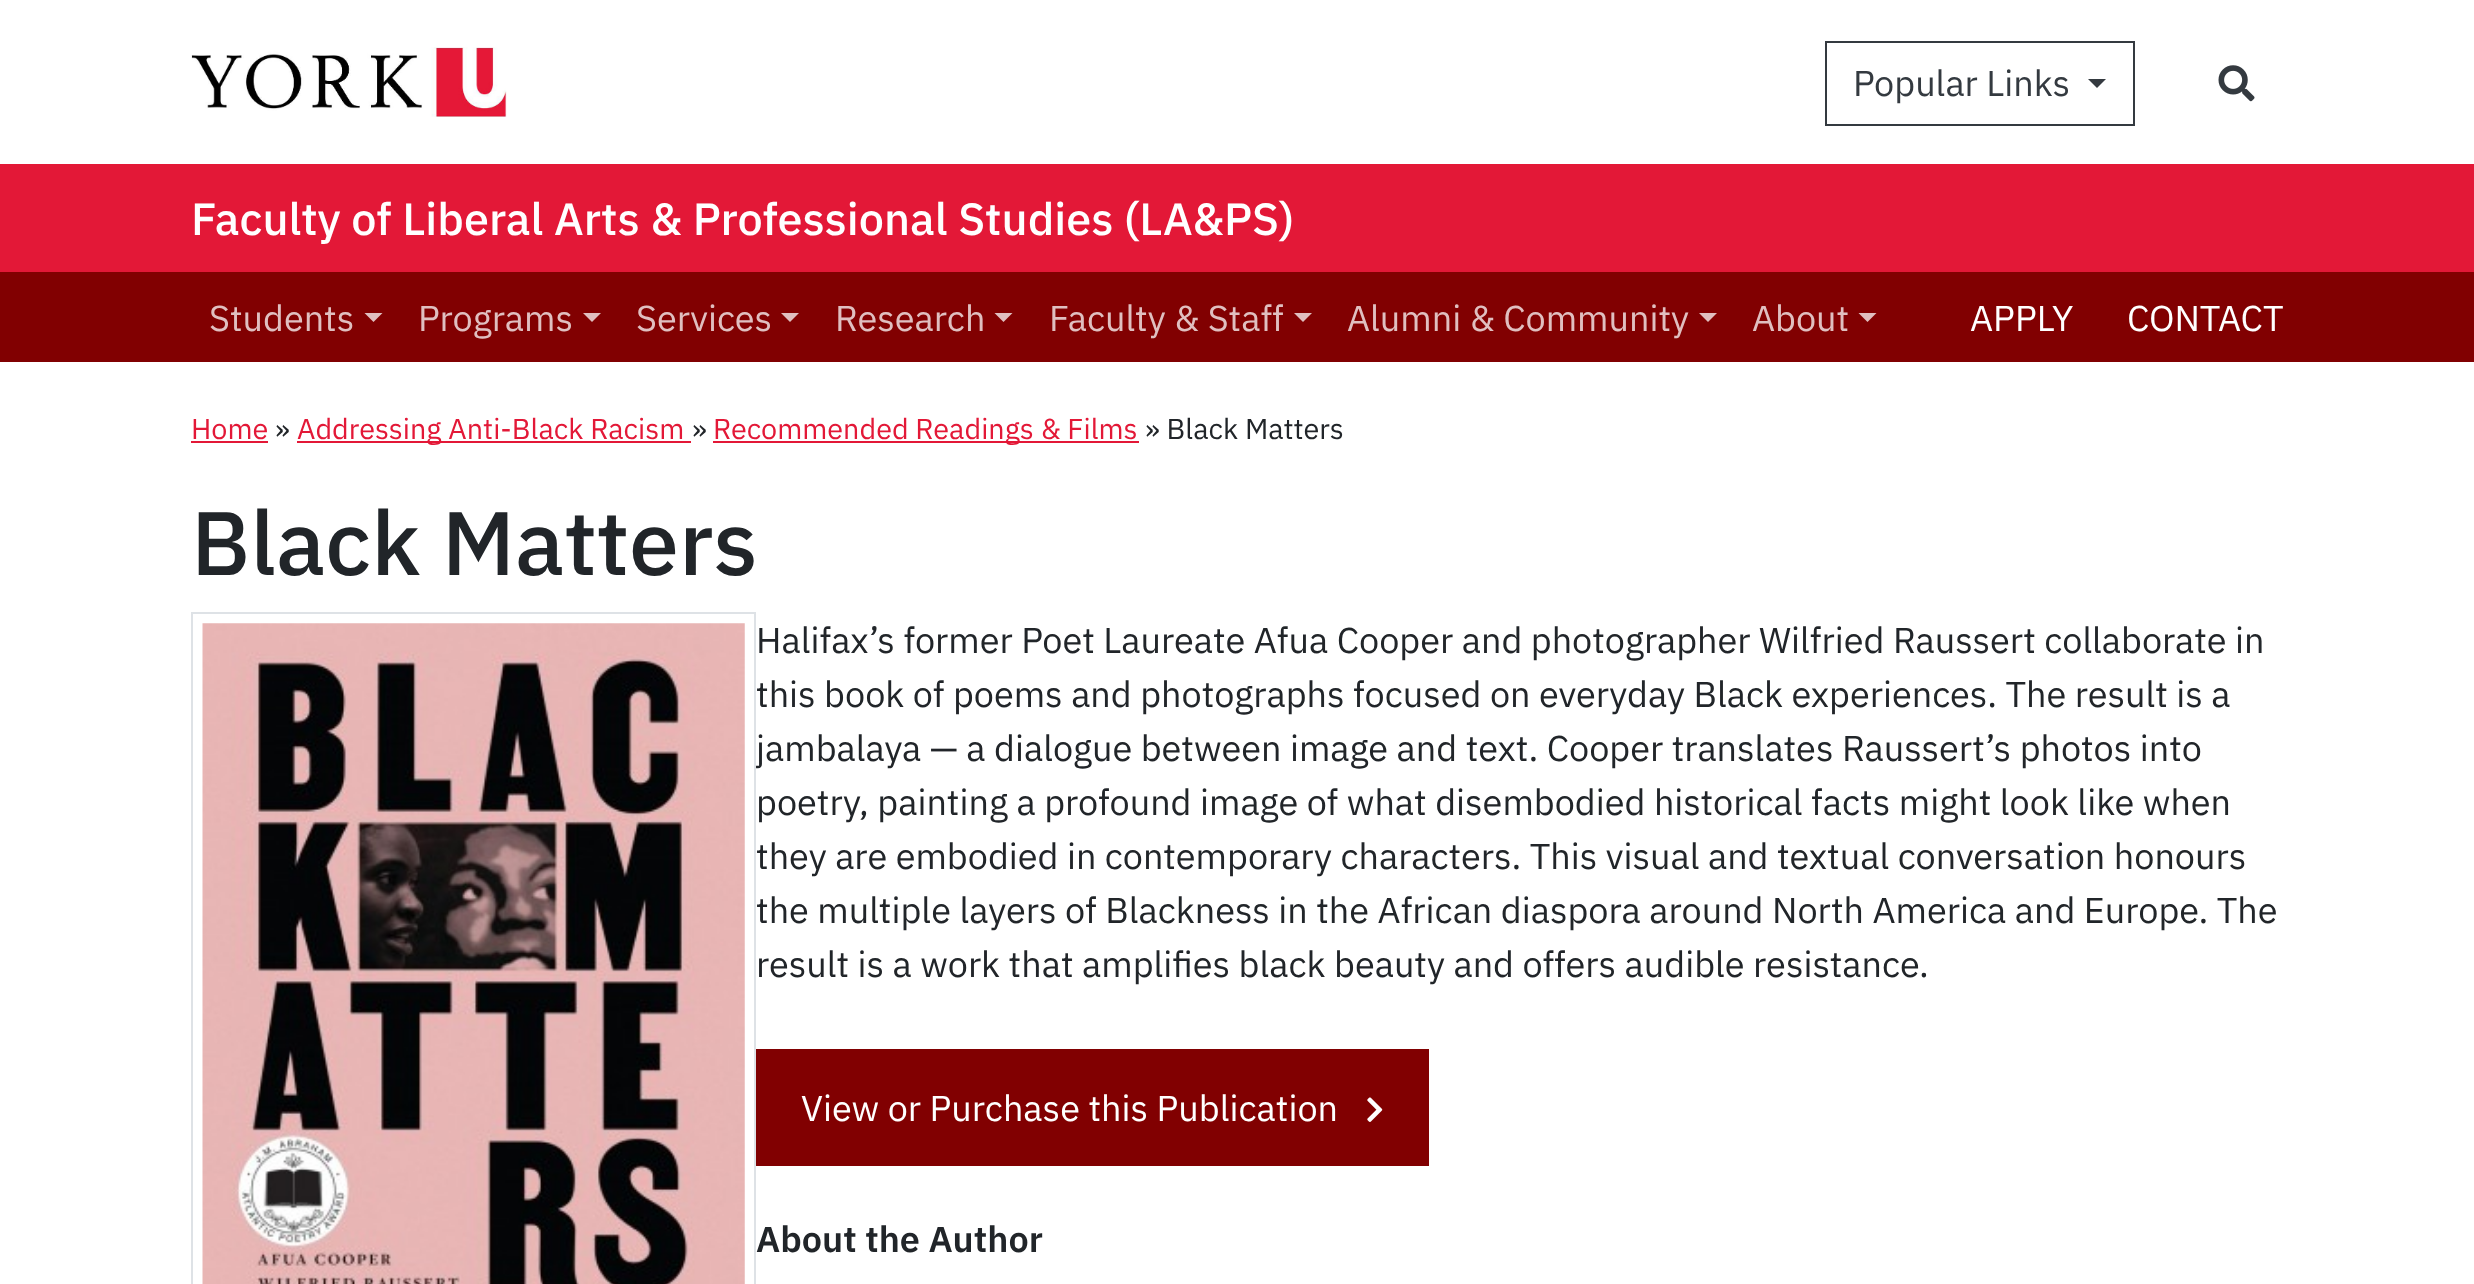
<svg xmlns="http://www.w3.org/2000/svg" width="2474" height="1284">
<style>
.a{font:36px IBM Plex Sans;fill:#343a40}
.b{font:500 45px IBM Plex Sans;fill:#fff}
.c{font:36px IBM Plex Sans;fill:#e0bfc0}
.d{font:36px IBM Plex Sans;fill:#fff}
.e{font:28.75px IBM Plex Sans;fill:#e31837}
.f{font:28.75px IBM Plex Sans;fill:#212529}
.g{font:500 90px IBM Plex Sans;fill:#212529}
.h{font:36px IBM Plex Sans;fill:#212529}
.i{font:600 36px IBM Plex Sans;fill:#212529}
</style>
<rect width="100%" height="100%" fill="#fff"/>
<image href="1.png" x="191" y="47" width="316" height="70"/>
<path fill="none" stroke="#343a40" stroke-width="2" d="M1826 42h308v83H1826z"/>
<path fill="#343a40" d="M2088 79h18l-9 9z"/>
<image href="2.png" x="2218" y="65" width="37" height="37"/>
<path fill="#e31837" d="M0 164h2474v108H0z"/>
<path fill="#810001" d="M0 272h2474v90H0z"/>
<path fill="#e0bfc0" d="M364.5 313h18l-9 9z"/>
<path fill="#e0bfc0" d="M583 313h18l-9 9z"/>
<path fill="#e0bfc0" d="M781 313h18l-9 9z"/>
<path fill="#e0bfc0" d="M994.5 313h18l-9 9z"/>
<path fill="#e0bfc0" d="M1294 313h18l-9 9z"/>
<path fill="#e0bfc0" d="M1699 313h18l-9 9z"/>
<path fill="#e0bfc0" d="M1858.5 313h18l-9 9z"/>
<path fill="#e31837" d="M191 441h77v2H191z"/>
<path fill="#e31837" d="M297 441h394v2H297z"/>
<path fill="#e31837" d="M713 441h426v2H713z"/>
<path fill="none" stroke="#dee2e6" stroke-width="2" d="M192 613h563v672H192z"/>
<image href="3.png" x="202" y="623" width="543" height="661"/>
<path fill="#810001" d="M756 1049h673v117H756z"/>
<image href="4.png" x="1367" y="1097" width="16" height="25"/>
<text class="a" x="1853" y="96">Popular Links</text>
<text class="b" x="191" y="235">Faculty of Liberal Arts &amp; Professional Studies (LA&amp;PS)</text>
<text class="c" x="209" y="331">Students</text>
<text class="c" x="418" y="331">Programs</text>
<text class="c" x="636" y="331">Services</text>
<text class="c" x="835" y="331">Research</text>
<text class="c" x="1049" y="331">Faculty &amp; Staff</text>
<text class="c" x="1347" y="331">Alumni &amp; Community</text>
<text class="c" x="1752" y="331">About</text>
<text class="d" x="1970" y="331">APPLY</text>
<text class="d" x="2127" y="331">CONTACT</text>
<text class="e" x="191" y="439">Home</text>
<text class="f" x="275" y="439">»</text>
<text class="e" x="297" y="439">Addressing Anti-Black Racism</text>
<text class="f" x="692" y="439">»</text>
<text class="e" x="713" y="439">Recommended Readings &amp; Films</text>
<text class="f" x="1145" y="439">» Black Matters</text>
<text class="g" x="191" y="575">Black Matters</text>
<text class="h" x="756" y="653">Halifax’s former Poet Laureate Afua Cooper and photographer Wilfried Raussert collaborate in</text>
<text class="h" x="756" y="707">this book of poems and photographs focused on everyday Black experiences. The result is a</text>
<text class="h" x="756" y="761">jambalaya — a dialogue between image and text. Cooper translates Raussert’s photos into</text>
<text class="h" x="756" y="815">poetry, painting a profound image of what disembodied historical facts might look like when</text>
<text class="h" x="756" y="869">they are embodied in contemporary characters. This visual and textual conversation honours</text>
<text class="h" x="756" y="923">the multiple layers of Blackness in the African diaspora around North America and Europe. The</text>
<text class="h" x="756" y="977">result is a work that amplifies black beauty and offers audible resistance.</text>
<text class="d" x="801" y="1121">View or Purchase this Publication</text>
<text class="i" x="756" y="1252">About the Author</text>
</svg>
